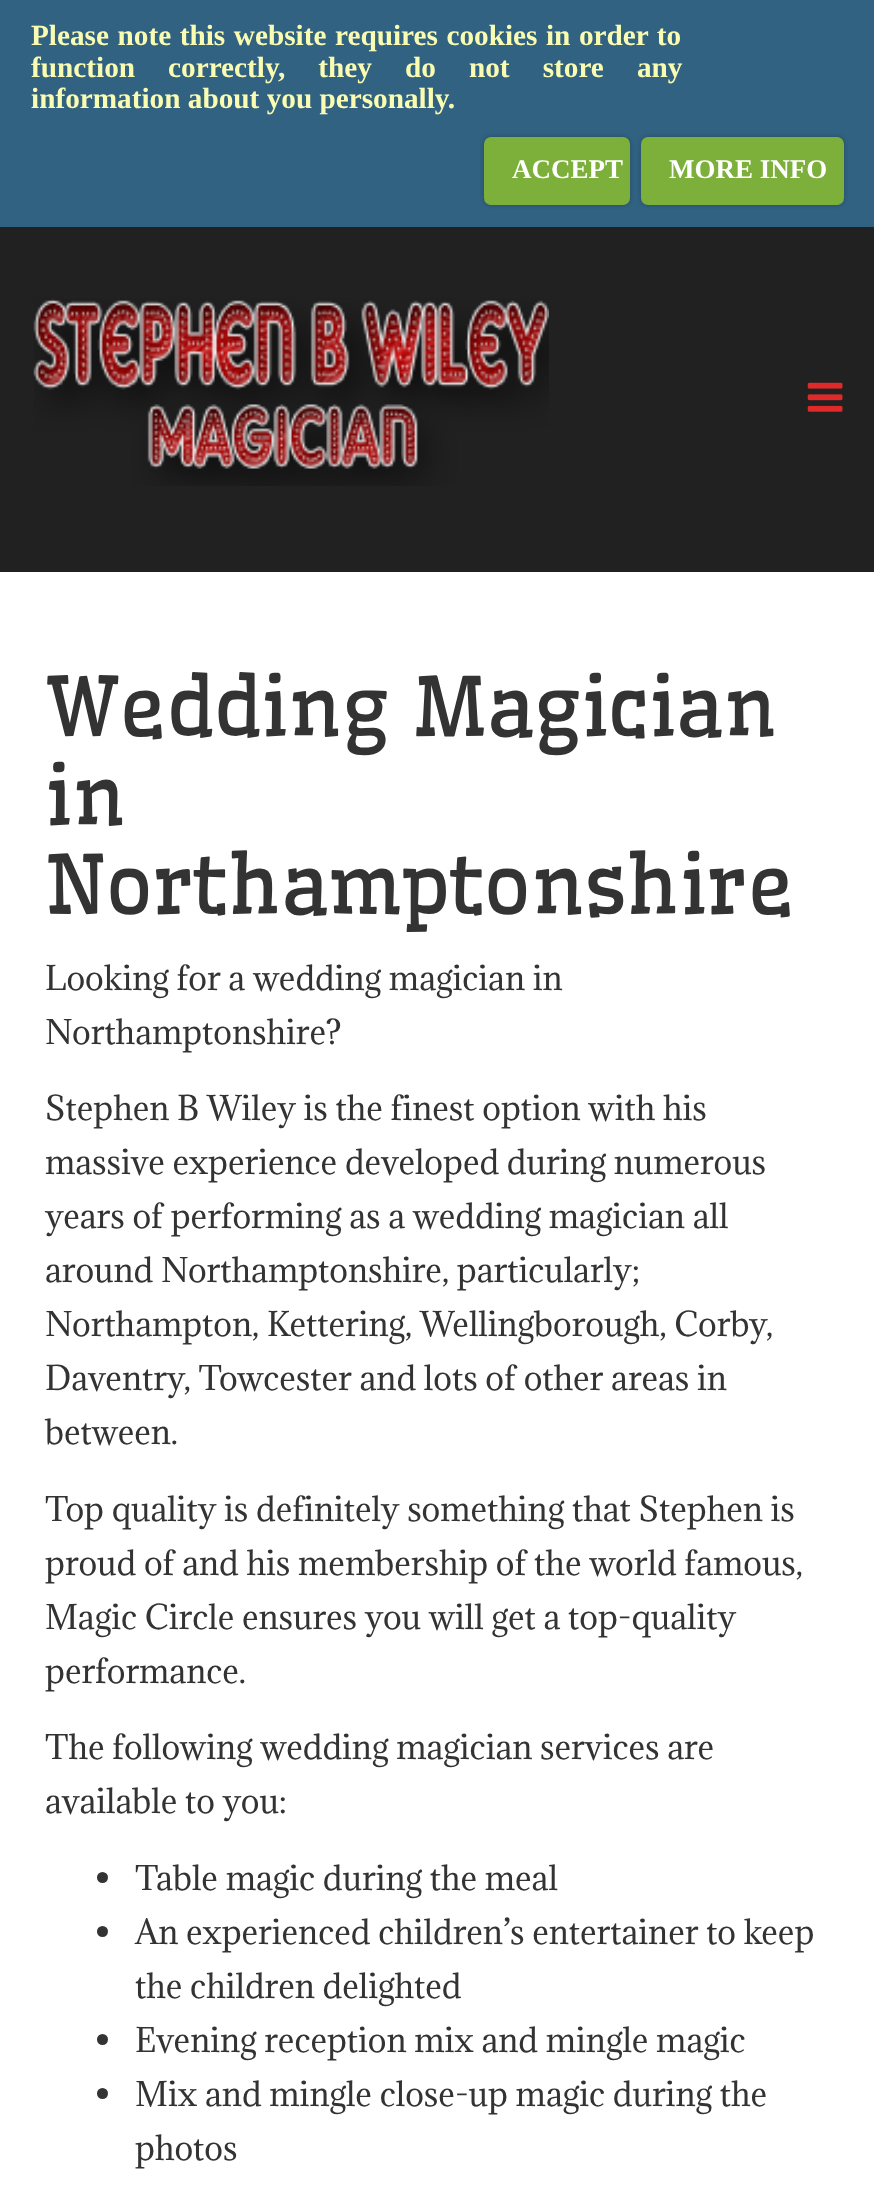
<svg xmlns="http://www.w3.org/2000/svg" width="874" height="2198">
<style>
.a{font:bold 29.25px Liberation Serif;fill:#fafcb1}
.b{font:bold 27px Liberation Serif;fill:#fff}
.c{font:81px Wellfleet;fill:#333}
.d{font:31.5px Adamina;fill:#333}
</style>
<rect width="100%" height="100%" fill="#fff"/>
<path fill="#316282" d="M0 0h874v227H0z"/>
<rect fill="#00000040" filter="blur(2px)" x="484" y="137" width="146" height="68" rx="7"/>
<rect fill="#7daf3b" x="484" y="137" width="146" height="68" rx="7"/>
<rect fill="#00000040" filter="blur(2px)" x="641" y="137" width="203" height="68" rx="7"/>
<rect fill="#7daf3b" x="641" y="137" width="203" height="68" rx="7"/>
<path fill="#212121" d="M0 227h874v345H0z"/>
<image href="1.png" x="33" y="298" width="516" height="188"/>
<image href="2.png" x="807" y="382" width="36" height="30"/>
<circle fill="#333" cx="102.5" cy="1877.5" r="5.5"/>
<circle fill="#333" cx="102.5" cy="1931.5" r="5.5"/>
<circle fill="#333" cx="102.5" cy="2039.5" r="5.5"/>
<circle fill="#333" cx="102.5" cy="2093.5" r="5.5"/>
<text class="a" x="31" y="45" word-spacing="1.25">Please note this website requires cookies in order to</text>
<text class="a" x="31" y="77" word-spacing="25.75">function correctly, they do not store any</text>
<text class="a" x="31" y="108">information about you personally.</text>
<text class="b" x="512" y="178">ACCEPT</text>
<text class="b" x="669" y="178">MORE INFO</text>
<text class="c" x="45" y="736">Wedding Magician</text>
<text class="c" x="45" y="825">in</text>
<text class="c" x="45" y="914">Northamptonshire</text>
<text class="d" x="45" y="990">Looking for a wedding magician in</text>
<text class="d" x="45" y="1044">Northamptonshire?</text>
<text class="d" x="45" y="1120">Stephen B Wiley is the finest option with his</text>
<text class="d" x="45" y="1174">massive experience developed during numerous</text>
<text class="d" x="45" y="1228">years of performing as a wedding magician all</text>
<text class="d" x="45" y="1282">around Northamptonshire, particularly;</text>
<text class="d" x="45" y="1336">Northampton, Kettering, Wellingborough, Corby,</text>
<text class="d" x="45" y="1390">Daventry, Towcester and lots of other areas in</text>
<text class="d" x="45" y="1444">between.</text>
<text class="d" x="45" y="1521">Top quality is definitely something that Stephen is</text>
<text class="d" x="45" y="1575">proud of and his membership of the world famous,</text>
<text class="d" x="45" y="1629">Magic Circle ensures you will get a top-quality</text>
<text class="d" x="45" y="1683">performance.</text>
<text class="d" x="45" y="1759">The following wedding magician services are</text>
<text class="d" x="45" y="1813">available to you:</text>
<text class="d" x="135" y="1890">Table magic during the meal</text>
<text class="d" x="135" y="1944">An experienced children’s entertainer to keep</text>
<text class="d" x="135" y="1998">the children delighted</text>
<text class="d" x="135" y="2052">Evening reception mix and mingle magic</text>
<text class="d" x="135" y="2106">Mix and mingle close-up magic during the</text>
<text class="d" x="135" y="2160">photos</text>
</svg>
